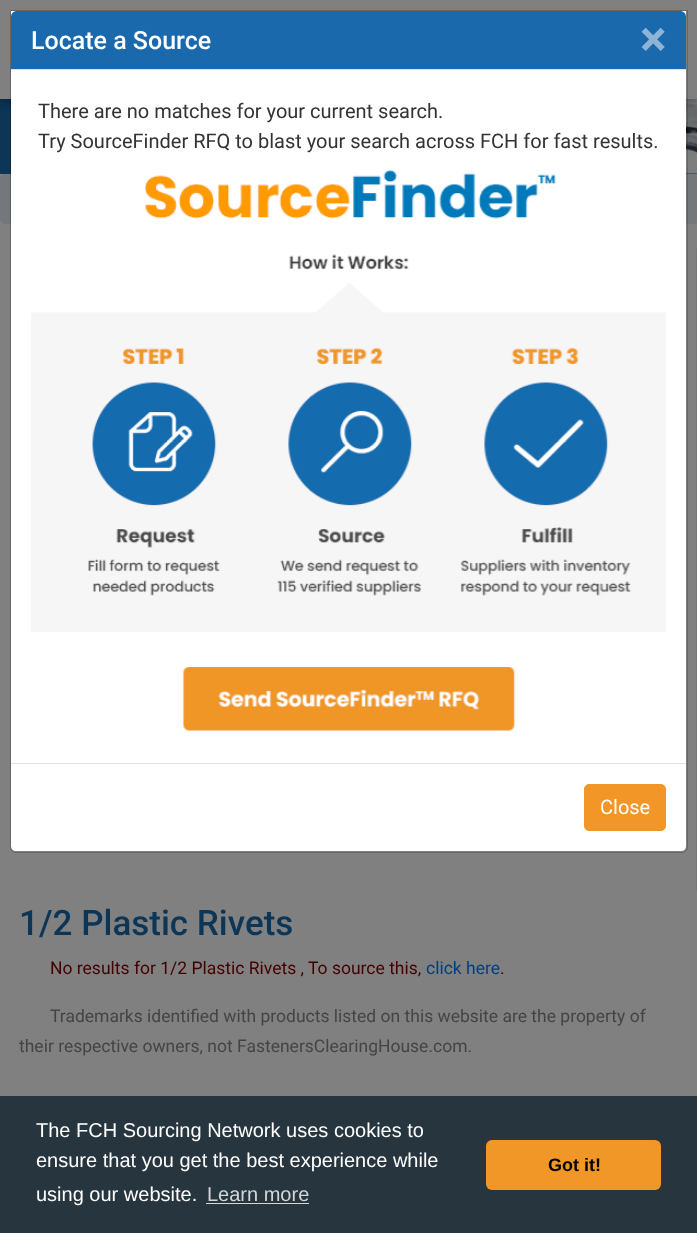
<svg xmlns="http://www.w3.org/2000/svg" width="697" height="1233">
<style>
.a{font:500 25px Roboto;fill:#fff}
.b{font:bold 50px Roboto;fill:#8db4d6}
.c{font:20px Roboto;fill:#333}
.d{font:20px Roboto;fill:#fff}
.e{font:17.5px Roboto;fill:#444}
.f{font:500 35px Roboto;fill:#0d3556}
.g{font:17.5px Roboto;fill:#400}
.h{font:17.5px Roboto;fill:#003e80}
.i{font:20px Liberation Sans;fill:#fff}
.j{font:20px Liberation Sans;fill:#d4d7d8}
.k{font:bold 18px Liberation Sans;fill:#000}
</style>
<rect width="100%" height="100%" fill="#808080"/>
<path fill="#0d3556" d="M0 99h697v75H0z"/>
<image href="2.png" x="686" y="99" width="11" height="75"/>
<path fill="#0000004d" filter="blur(5px)" d="M0 4h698v99H0z"/>
<path fill="#808080" d="M0 0h697v99H0z"/>
<rect fill="#75787b" y="174" width="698" height="50" rx="5"/>
<path fill="#fff" d="M11 11h675v835c0 3-2 5-5 5h-665c-3 0-5-2-5-5z"/>
<path fill="none" stroke="#00000033" d="M10.5 10.5h677v836.5c0 3-2.5 5.5-5.5 5.5h-666c-3 0-5.5-2.5-5.5-5.5z"/>
<path fill="#1a69ac" d="M17 11h663c3.5 0 6 2.5 6 6v53h-675v-53c0-3.5 2.5-6 6-6z"/>
<path fill="#dee2e6" d="M11 69h675v1H11z"/>
<image href="1.png" x="31" y="170" width="635" height="561"/>
<path fill="#dee2e6" d="M11 763h675v1H11z"/>
<rect fill="#f19627" stroke="#f19627" x="584.5" y="784.5" width="81" height="46" rx="4.5"/>
<path fill="#777" d="M696 249h1v641H696z"/>
<path fill="#27353e" d="M0 1096h697v137H0z"/>
<path fill="#d4d7d8" d="M206 1203h103v1H206z"/>
<rect fill="#f19727" x="486" y="1140" width="175" height="50" rx="6"/>
<text class="a" x="31" y="49">Locate a Source</text>
<text class="b" x="640" y="56">×</text>
<text class="c" x="38" y="118">There are no matches for your current search.</text>
<text class="c" x="38" y="148">Try SourceFinder RFQ to blast your search across FCH for fast results.</text>
<text class="d" x="600" y="814">Close</text>
<text class="e" x="50" y="1022">Trademarks identified with products listed on this website are the property of</text>
<text class="e" x="19" y="1052">their respective owners, not FastenersClearingHouse.com.</text>
<text class="f" x="19" y="935">1/2 Plastic Rivets</text>
<text class="g" x="50" y="974">No results for 1/2 Plastic Rivets , To source this,</text>
<text class="h" x="426" y="974">click here</text>
<text class="g" x="500" y="974">.</text>
<text class="i" x="36" y="1137">The FCH Sourcing Network uses cookies to</text>
<text class="i" x="36" y="1167">ensure that you get the best experience while</text>
<text class="i" x="36" y="1201">using our website.</text>
<text class="j" x="207" y="1201">Learn more</text>
<text class="k" x="548" y="1171">Got it!</text>
</svg>
